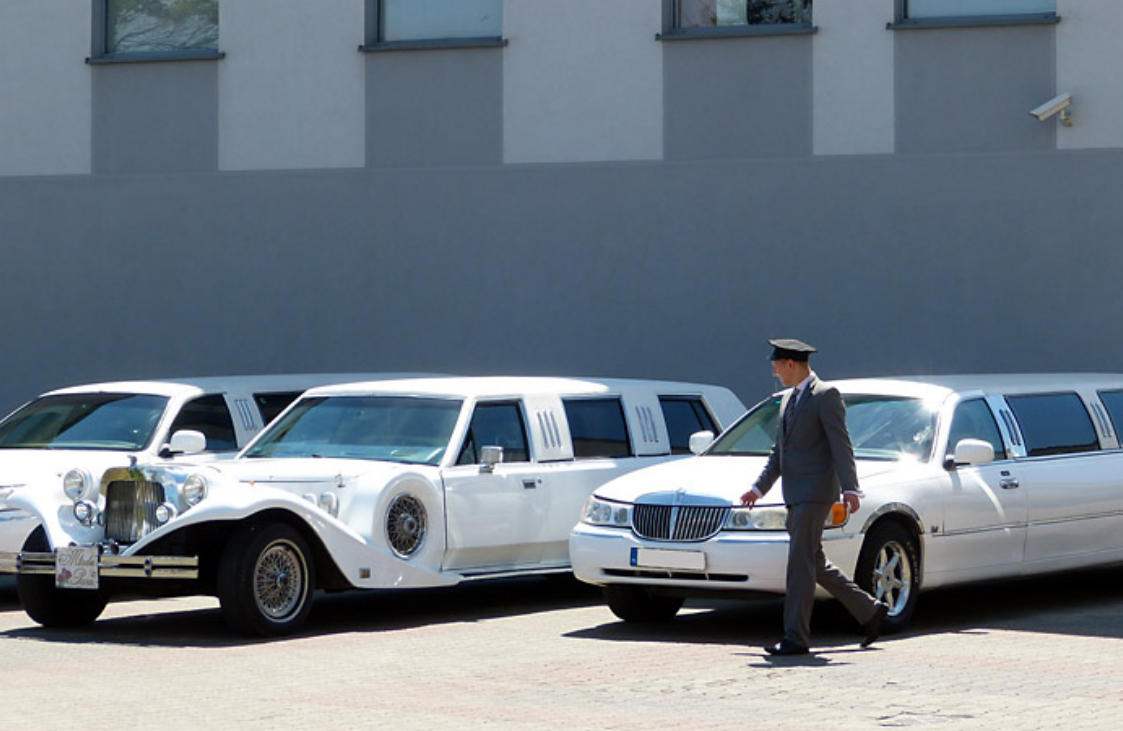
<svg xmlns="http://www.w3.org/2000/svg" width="1123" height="731">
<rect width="100%" height="100%" fill="#fff"/>
<image href="1.png" x="0" y="0" width="1123" height="731"/>
</svg>
